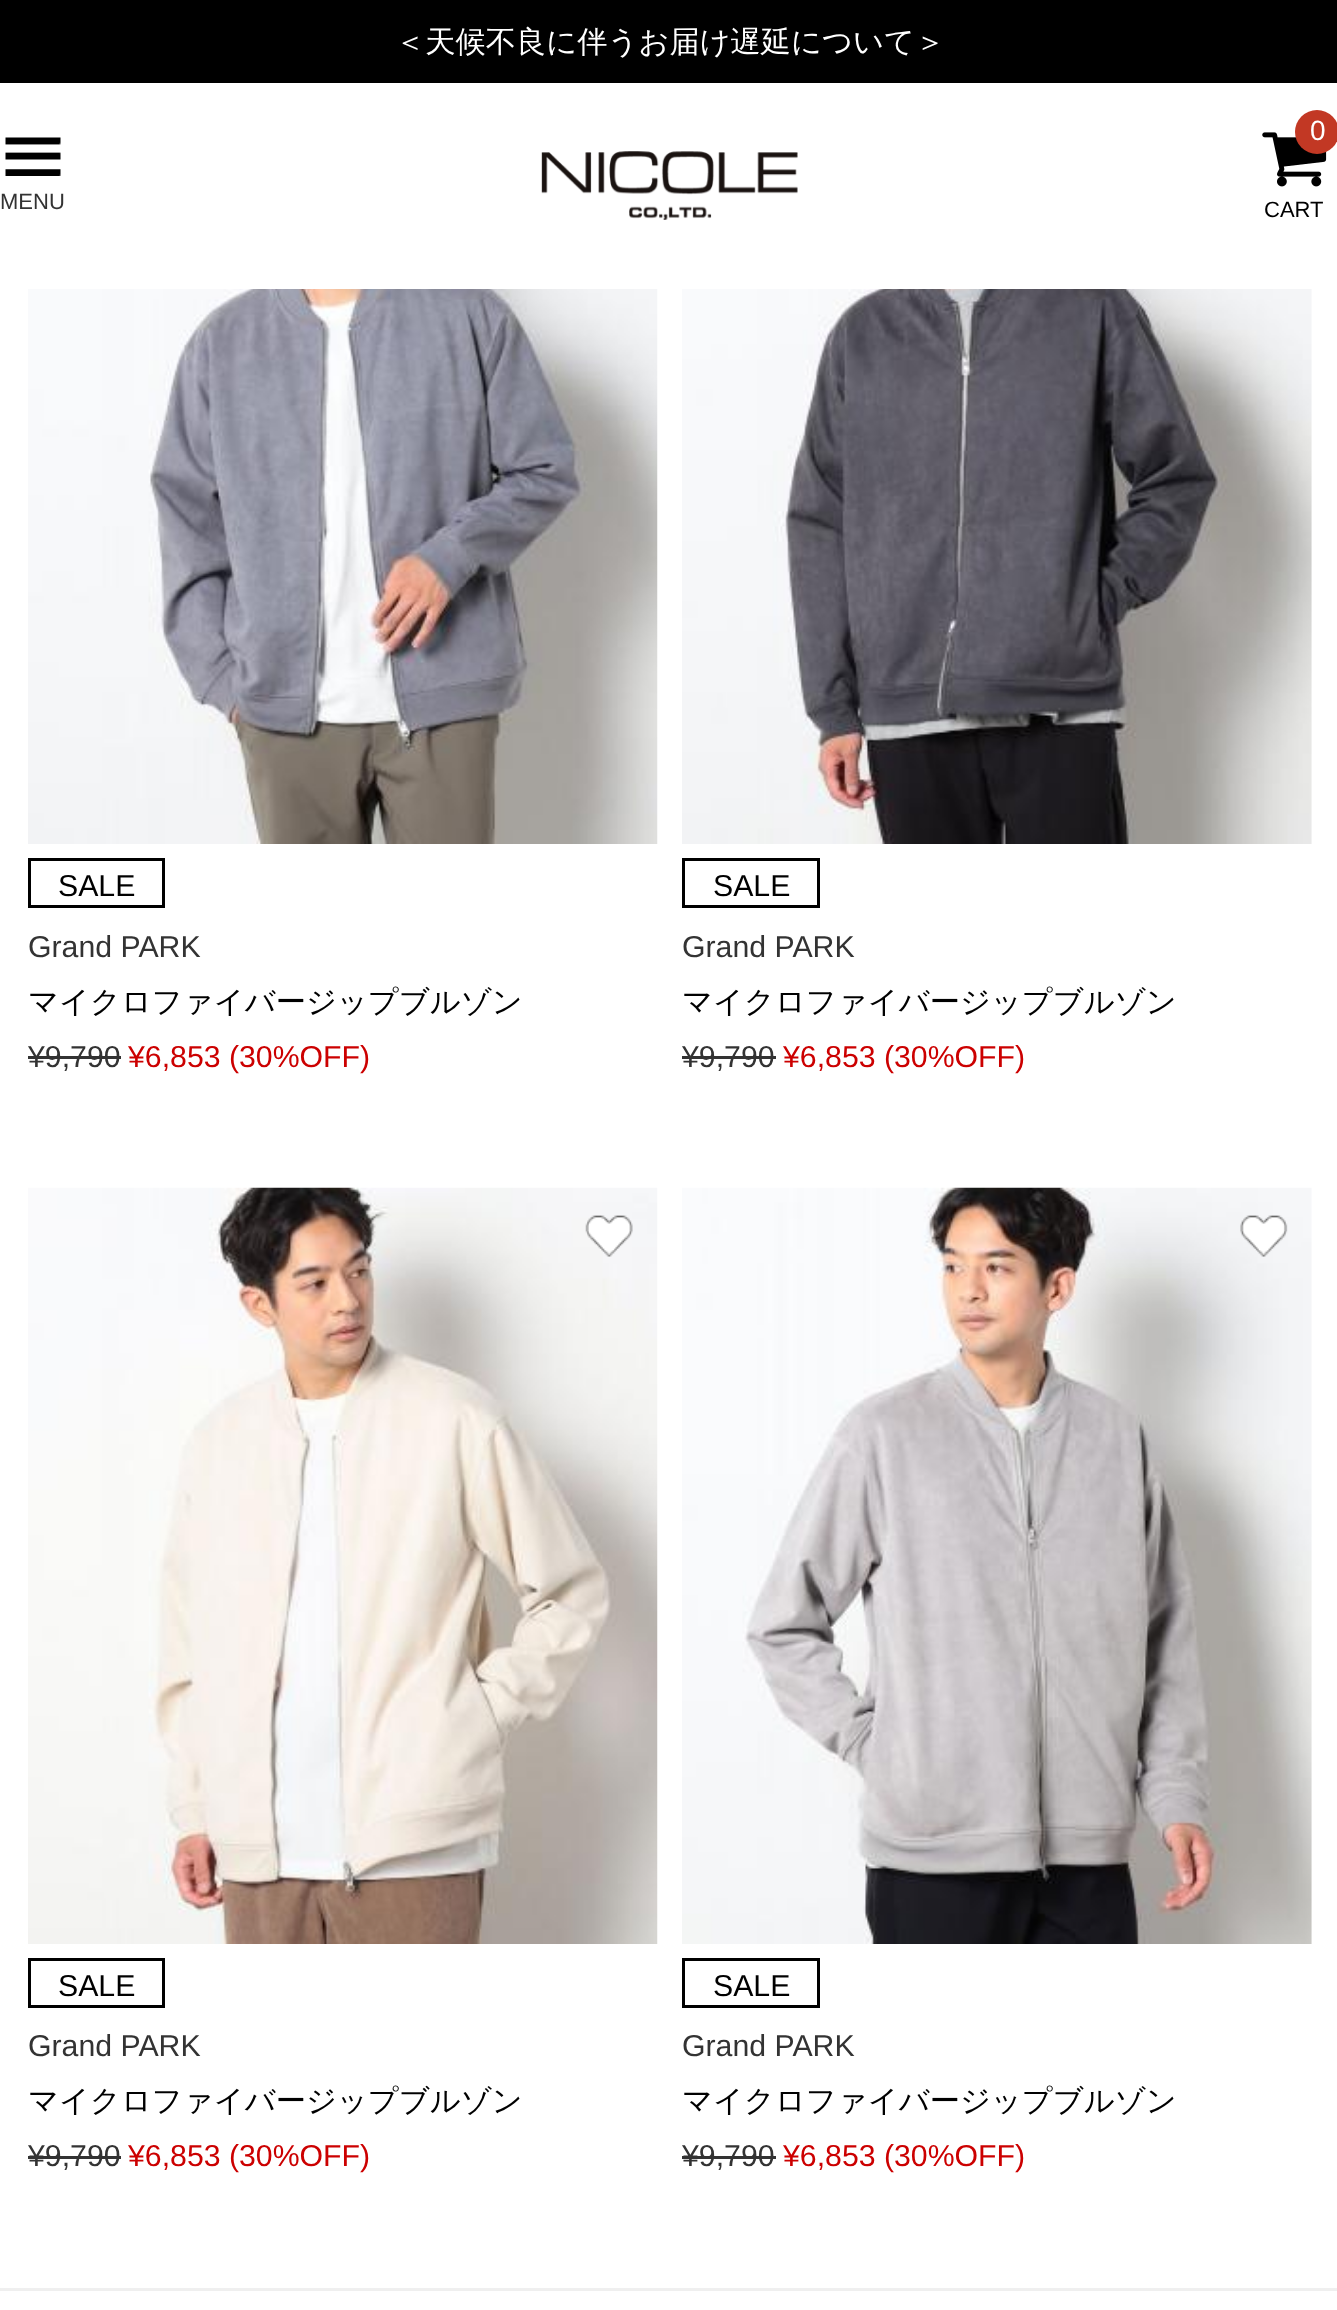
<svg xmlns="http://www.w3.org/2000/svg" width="1337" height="2310">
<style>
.a{font:500 30.25px WenQuanYi Zen Hei;fill:#fff}
.b{font:22px Liberation Sans;fill:#333}
.c{font:28px Liberation Sans;fill:#fff}
.d{font:22px Liberation Sans;fill:#000}
.e{font:30.25px Liberation Sans;fill:#000}
.f{font:30.25px Liberation Sans;fill:#333}
.g{font:500 30.25px WenQuanYi Zen Hei;fill:#000}
.h{font:30.25px Liberation Sans;fill:#c00}
</style>
<rect width="100%" height="100%" fill="#fff"/>
<path fill="#000" d="M0 0h1337v83H0z"/>
<image href="1.png" x="5" y="137" width="56" height="39"/>
<image href="2.png" x="541" y="151" width="257" height="69"/>
<image href="3.png" x="1262" y="132" width="65" height="55"/>
<circle fill="#c23824" cx="1317" cy="132" r="22"/>
<image href="4.png" x="28" y="289" width="630" height="555"/>
<path fill="none" stroke="#000" stroke-width="3" d="M29.5 859.5h134v47H29.5z"/>
<path fill="#333" d="M28 1056h93v3H28z"/>
<image href="5.png" x="682" y="289" width="630" height="555"/>
<path fill="none" stroke="#000" stroke-width="3" d="M683.5 859.5h135v47H683.5z"/>
<path fill="#333" d="M682 1056h94v3H682z"/>
<image href="6.png" x="28" y="1187" width="630" height="757"/>
<image href="7.png" x="585" y="1215" width="48" height="42"/>
<path fill="none" stroke="#000" stroke-width="3" d="M29.5 1959.5h134v47H29.5z"/>
<path fill="#333" d="M28 2156h93v3H28z"/>
<image href="8.png" x="682" y="1187" width="630" height="757"/>
<image href="9.png" x="1240" y="1215" width="48" height="42"/>
<path fill="none" stroke="#000" stroke-width="3" d="M683.5 1959.5h135v47H683.5z"/>
<path fill="#333" d="M682 2156h94v3H682z"/>
<path fill="#efefef" d="M0 2288h1337v3H0z"/>
<text class="a" x="395" y="52">＜天候不良に伴うお届け遅延について＞</text>
<text class="b" x="0" y="209">MENU</text>
<text class="c" x="1310" y="140">0</text>
<text class="d" x="1264" y="217">CART</text>
<text class="e" x="58" y="896">SALE</text>
<text class="f" x="28" y="957">Grand PARK</text>
<text class="g" x="28" y="1012">マイクロファイバージップブルゾン</text>
<text class="f" x="28" y="1067">¥9,790</text>
<text class="h" x="128" y="1067">¥6,853 (30%OFF)</text>
<text class="e" x="713" y="896">SALE</text>
<text class="f" x="682" y="957">Grand PARK</text>
<text class="g" x="682" y="1012">マイクロファイバージップブルゾン</text>
<text class="f" x="682" y="1067">¥9,790</text>
<text class="h" x="783" y="1067">¥6,853 (30%OFF)</text>
<text class="e" x="58" y="1996">SALE</text>
<text class="f" x="28" y="2056">Grand PARK</text>
<text class="g" x="28" y="2111">マイクロファイバージップブルゾン</text>
<text class="f" x="28" y="2166">¥9,790</text>
<text class="h" x="128" y="2166">¥6,853 (30%OFF)</text>
<text class="e" x="713" y="1996">SALE</text>
<text class="f" x="682" y="2056">Grand PARK</text>
<text class="g" x="682" y="2111">マイクロファイバージップブルゾン</text>
<text class="f" x="682" y="2166">¥9,790</text>
<text class="h" x="783" y="2166">¥6,853 (30%OFF)</text>
</svg>
